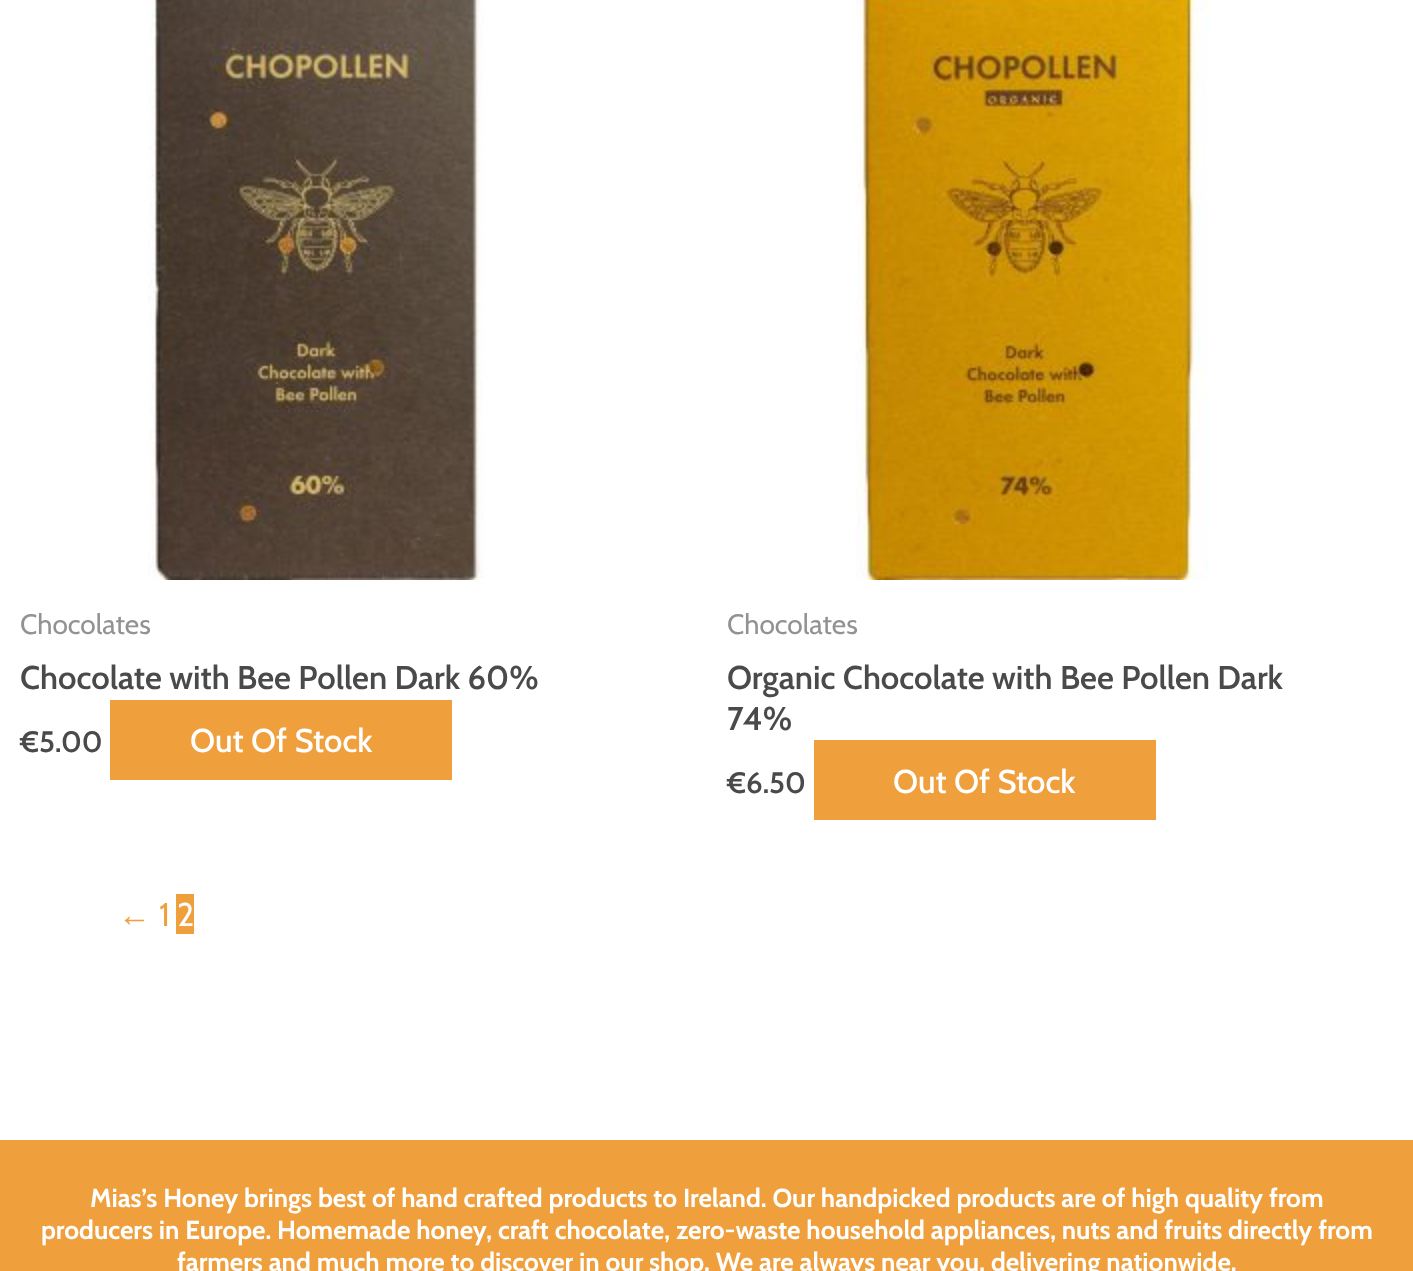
<svg xmlns="http://www.w3.org/2000/svg" width="1413" height="1271">
<style>
.a{font:28px Cabin;fill:#929292}
.b{font:600 32.8px Cabin;fill:#4a4a4a}
.c{font:600 29.5px Cabin;fill:#4a4a4a}
.d{font:500 32.8px Cabin;fill:#fff}
.e{font:32.8px Liberation Sans;fill:#f09f3d}
.f{font:32.8px Cabin;fill:#f09f3d}
.g{font:32.8px Cabin;fill:#fff}
.h{font:bold 26px Cabin;fill:#fff}
</style>
<rect width="100%" height="100%" fill="#fff"/>
<image href="1.png" x="148" y="0" width="336" height="580"/>
<path fill="#f09f3d" d="M110 700h342v80H110z"/>
<image href="2.png" x="856" y="0" width="353" height="580"/>
<path fill="#f09f3d" d="M814 740h342v80H814z"/>
<path fill="#f09f3d" d="M176 894h18v40H176z"/>
<path fill="#f09f3d" d="M0 1140h1413v131H0z"/>
<text class="a" x="20" y="634">Chocolates</text>
<text class="b" x="20" y="689">Chocolate with Bee Pollen Dark 60%</text>
<text class="c" x="20" y="752">€5.00</text>
<text class="d" x="190" y="752">Out Of Stock</text>
<text class="a" x="727" y="634">Chocolates</text>
<text class="b" x="727" y="689">Organic Chocolate with Bee Pollen Dark</text>
<text class="b" x="727" y="730">74%</text>
<text class="c" x="727" y="793">€6.50</text>
<text class="d" x="893" y="793">Out Of Stock</text>
<text class="e" x="118" y="926">←</text>
<text class="f" x="159" y="926">1</text>
<text class="g" x="177" y="926">2</text>
<text class="h" x="90" y="1207">Mias’s Honey brings best of hand crafted products to Ireland. Our handpicked products are of high quality from</text>
<text class="h" x="41" y="1239">producers in Europe. Homemade honey, craft chocolate, zero-waste household appliances, nuts and fruits directly from</text>
<text class="h" x="177" y="1271">farmers and much more to discover in our shop. We are always near you, delivering nationwide.</text>
</svg>
